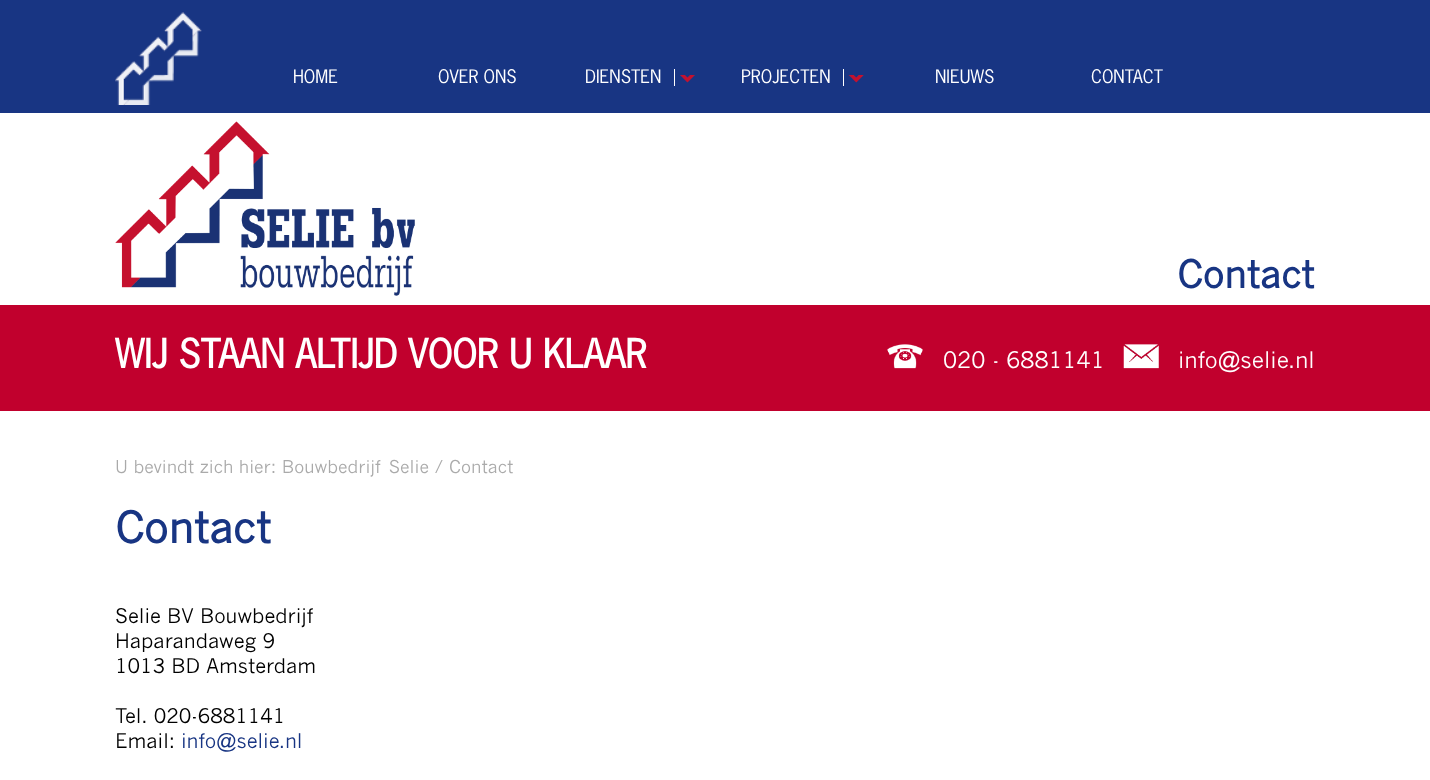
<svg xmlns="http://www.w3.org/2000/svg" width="1430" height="780">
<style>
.a{font:17.5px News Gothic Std;fill:#fff}
.b{font:bold 37.5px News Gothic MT;fill:#183583}
.c{font:bold 37.5px News Gothic Std;fill:#fff}
.d{font:22.5px News Gothic MT;fill:#fff}
.e{font:17.5px News Gothic MT;fill:#aaa}
.f{font:bold 42.5px News Gothic MT;fill:#183583}
.g{font:20px News Gothic MT;fill:#000}
.h{font:20px News Gothic MT;fill:#183583}
</style>
<rect width="100%" height="100%" fill="#fff"/>
<path fill="#183583" d="M0 0h1430v113H0z"/>
<image href="1.png" x="115" y="12" width="87" height="93"/>
<path fill="#fff" d="M674 69h1v17H674z"/>
<image href="2.png" x="680" y="75" width="15" height="8"/>
<path fill="#fff" d="M843 69h1v17H843z"/>
<image href="3.png" x="848" y="75" width="16" height="8"/>
<image href="4.png" x="115" y="121" width="300" height="175"/>
<path fill="#c1002d" d="M0 305h1430v106H0z"/>
<image href="5.png" x="887" y="344" width="36" height="25"/>
<image href="6.png" x="1123" y="344" width="36" height="25"/>
<text class="a" x="293" y="83">HOME</text>
<text class="a" x="438" y="83">OVER ONS</text>
<text class="a" x="585" y="83">DIENSTEN</text>
<text class="a" x="741" y="83">PROJECTEN</text>
<text class="a" x="935" y="83">NIEUWS</text>
<text class="a" x="1091" y="83">CONTACT</text>
<text class="b" x="1177" y="288">Contact</text>
<text class="c" x="115" y="368">WIJ STAAN ALTIJD VOOR U KLAAR</text>
<text class="d" x="943" y="368">020 - 6881141</text>
<text class="d" x="1178" y="368">info@selie.nl</text>
<text class="e" x="115" y="473">U bevindt zich hier: Bouwbedrijf Selie / Contact</text>
<text class="f" x="115" y="543">Contact</text>
<text class="g" x="115" y="623">Selie BV Bouwbedrijf</text>
<text class="g" x="115" y="648">Haparandaweg 9</text>
<text class="g" x="115" y="673">1013 BD Amsterdam</text>
<text class="g" x="115" y="723">Tel. 020-6881141</text>
<text class="g" x="115" y="748">Email:</text>
<text class="h" x="181" y="748">info@selie.nl</text>
</svg>
